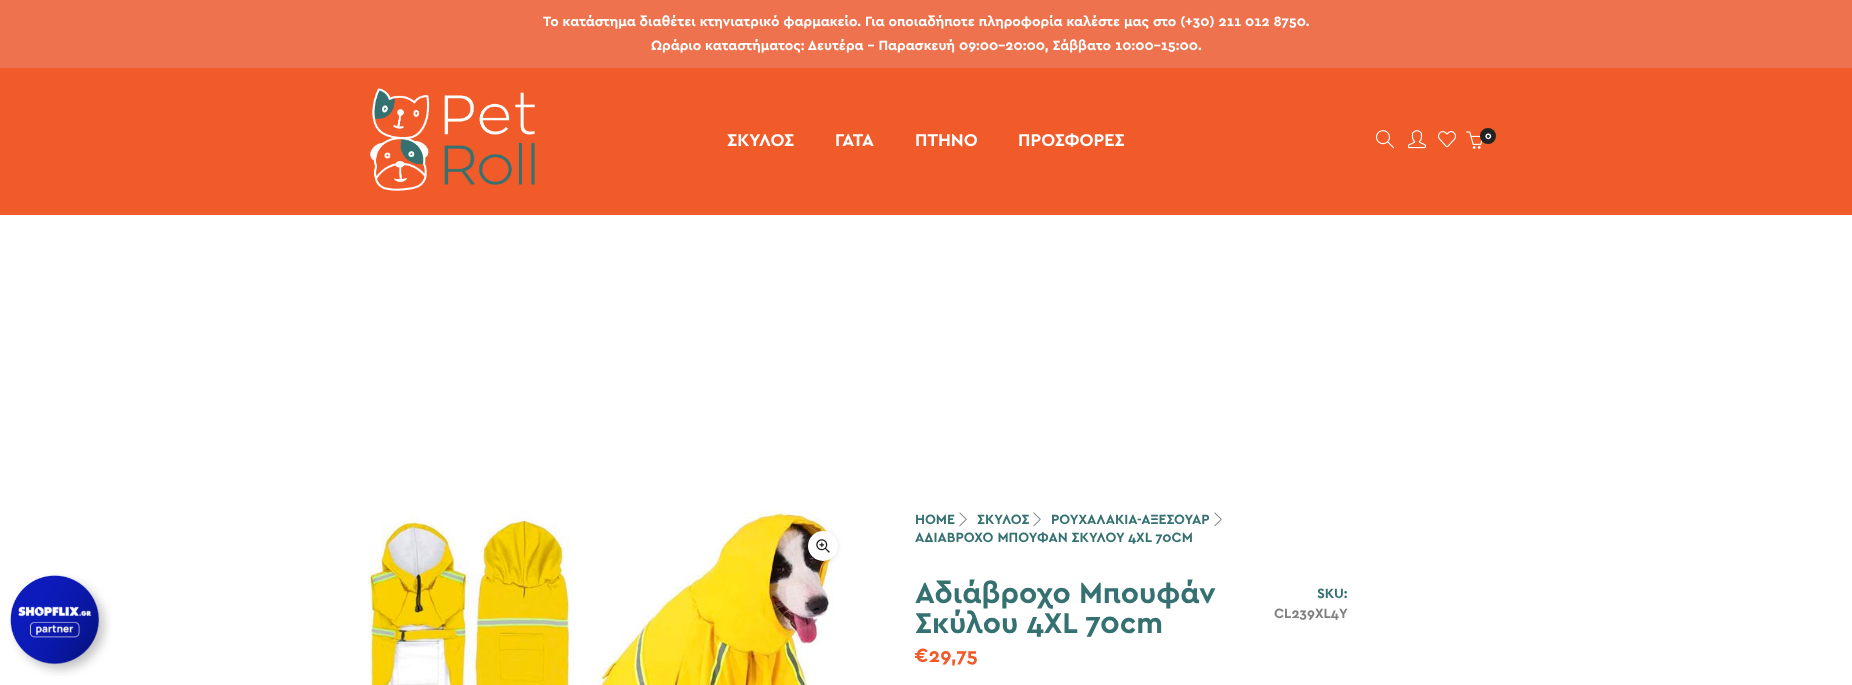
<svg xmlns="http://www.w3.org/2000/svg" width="1852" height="685">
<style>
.a{font:bold 14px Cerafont;fill:#fff}
.b{font:bold 18px Cerafont;fill:#fff}
.c{font:bold 10px Cerafont;fill:#fff}
.d{font:bold 14px Cerafont;fill:#357171}
.e{font:bold 30px Cerafont;fill:#357171}
.f{font:bold 20px Cerafont;fill:#f15a29}
.g{font:bold 14px Cerafont;fill:#808080}
</style>
<rect width="100%" height="100%" fill="#fff"/>
<path fill="#ee724d" d="M0 0h1852v68H0z"/>
<path fill="#f15a29" d="M0 68h1852v147H0z"/>
<image href="1.png" x="370" y="88" width="165" height="103"/>
<image href="2.png" x="1375" y="130" width="19" height="19"/>
<image href="3.png" x="1408" y="130" width="18" height="19"/>
<image href="4.png" x="1438" y="131" width="18" height="17"/>
<image href="5.png" x="1466" y="131" width="17" height="18"/>
<circle fill="#232323" cx="1488" cy="136" r="8"/>
<image href="6.png" x="9" y="574" width="102" height="102"/>
<image href="7.png" x="368" y="511" width="467" height="174"/>
<rect fill="#0000001a" filter="blur(2.5px)" x="808" y="532" width="30" height="30" rx="15"/>
<circle fill="#fff" cx="823" cy="546" r="15"/>
<image href="8.png" x="816" y="539" width="14" height="14"/>
<image href="9.png" x="959" y="512" width="8" height="15"/>
<image href="9.png" x="1033" y="512" width="8" height="15"/>
<image href="9.png" x="1214" y="512" width="8" height="15"/>
<text class="a" x="543" y="26">Το κατάστημα διαθέτει κτηνιατρικό φαρμακείο. Για οποιαδήποτε πληροφορία καλέστε μας στο (+30) 211 012 8750.</text>
<text class="a" x="651" y="50">Ωράριο καταστήματος: Δευτέρα - Παρασκευή 09:00-20:00, Σάββατο 10:00-15:00.</text>
<text class="b" x="727" y="146">ΣΚΥΛΟΣ</text>
<text class="b" x="835" y="146">ΓΑΤΑ</text>
<text class="b" x="915" y="146">ΠΤΗΝΟ</text>
<text class="b" x="1018" y="146">ΠΡΟΣΦΟΡΕΣ</text>
<text class="c" x="1485" y="139">0</text>
<text class="d" x="915" y="524">HOME</text>
<text class="d" x="977" y="524">ΣΚΥΛΟΣ</text>
<text class="d" x="1051" y="524">ΡΟΥΧΑΛΑΚΙΑ-ΑΞΕΣΟΥΑΡ</text>
<text class="d" x="915" y="542">ΑΔΙΑΒΡΟΧΟ ΜΠΟΥΦΑΝ ΣΚΥΛΟΥ 4XL 70CM</text>
<text class="e" x="915" y="603">Αδιάβροχο Μπουφάν</text>
<text class="e" x="915" y="633">Σκύλου 4XL 70cm</text>
<text class="f" x="915" y="662">€29,75</text>
<text class="d" x="1317" y="598">SKU:</text>
<text class="g" x="1274" y="618">CL239XL4Y</text>
</svg>
